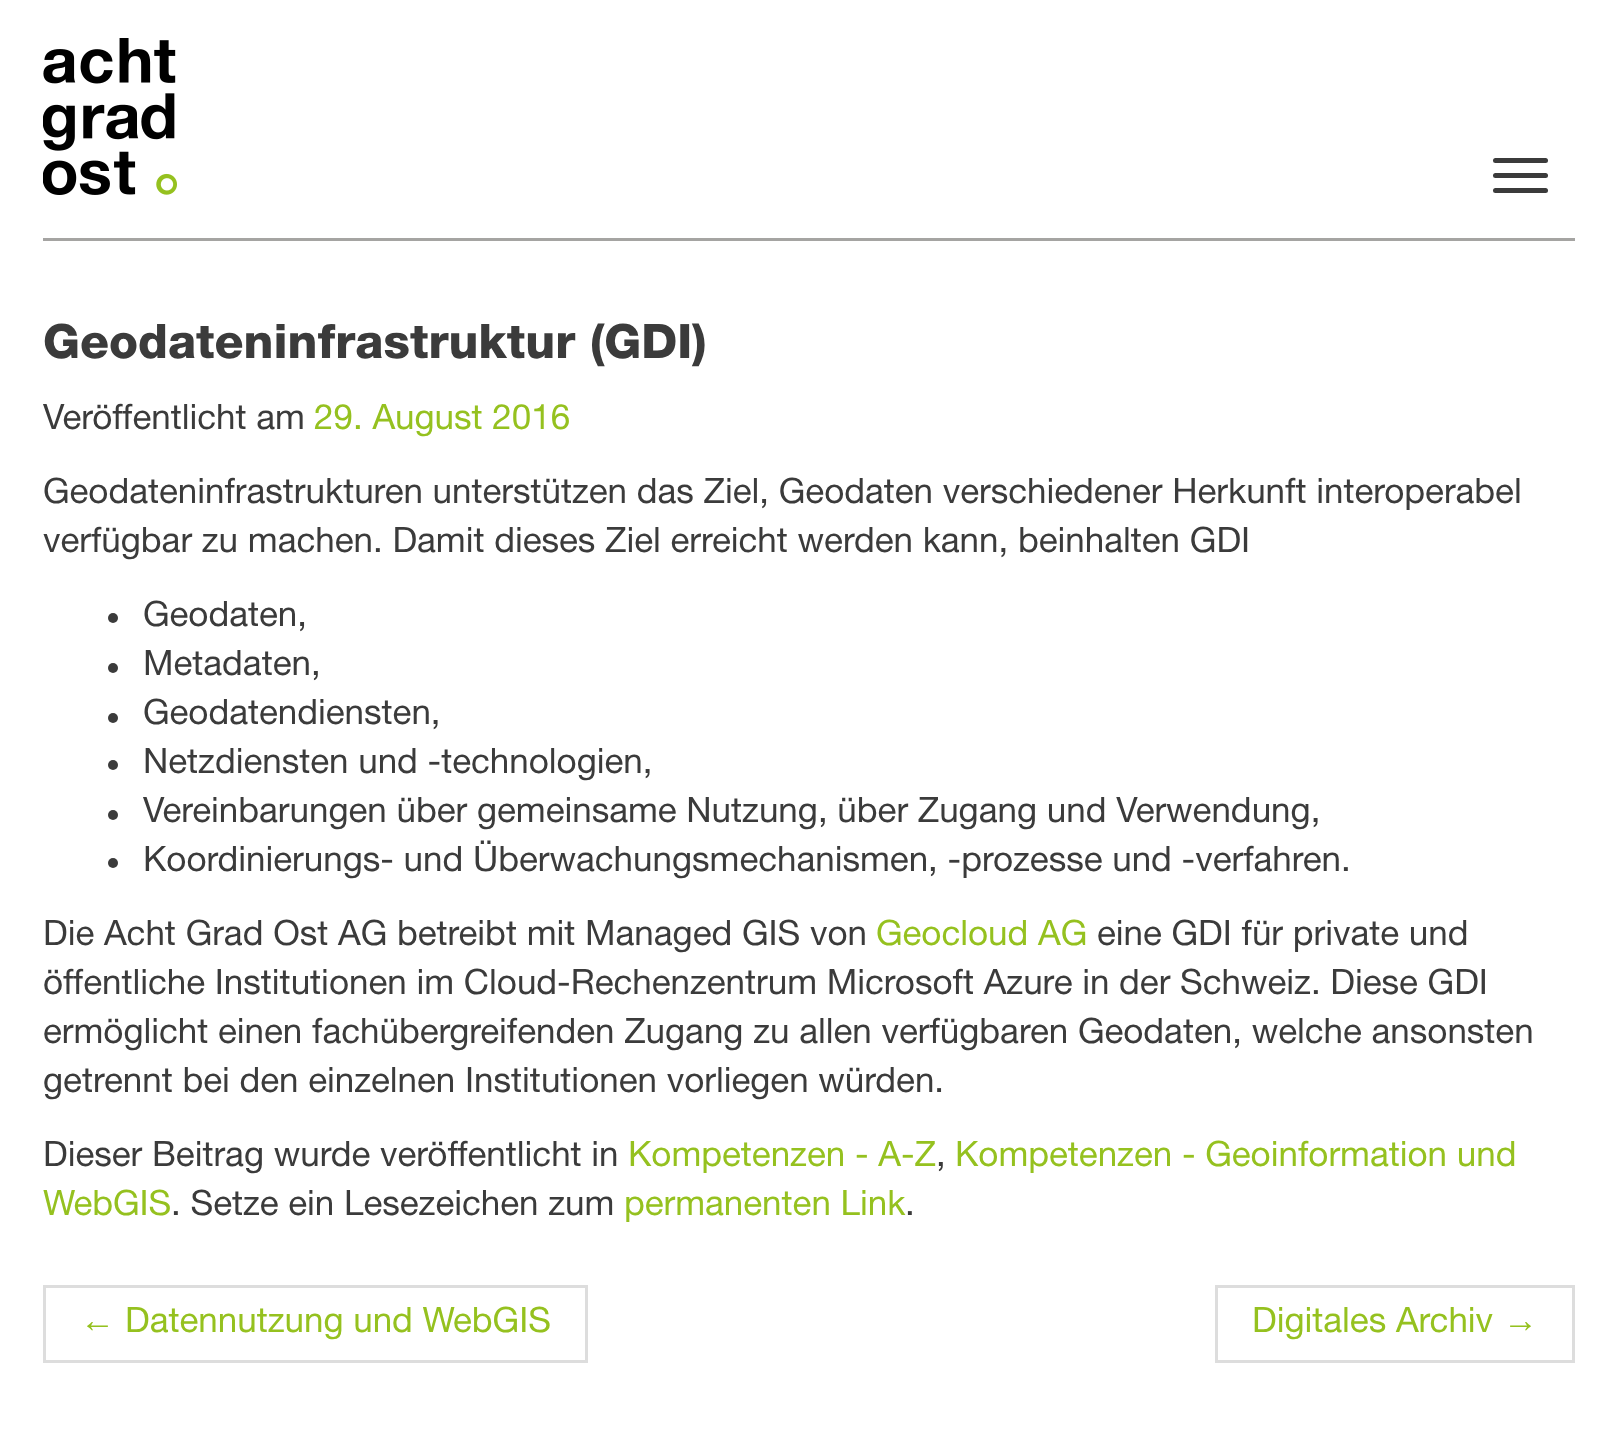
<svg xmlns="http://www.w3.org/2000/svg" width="1616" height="1454">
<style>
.a{font:47.5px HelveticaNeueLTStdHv;fill:#3b3b3b}
.b{font:35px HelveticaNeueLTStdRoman;fill:#3b3b3b}
.c{font:35px HelveticaNeueLTStdRoman;fill:#95c11f}
.d{font:35px Liberation Serif;fill:#95c11f}
</style>
<rect width="100%" height="100%" fill="#fff"/>
<path fill="#a5a4a2" d="M43 238h1532v3H43z"/>
<image href="1.png" x="43" y="38" width="134" height="157"/>
<rect fill="#3b3b3b" x="1493" y="158" width="55" height="5" rx="2.5"/>
<rect fill="#3b3b3b" x="1493" y="173" width="55" height="5" rx="2.5"/>
<rect fill="#3b3b3b" x="1493" y="188" width="55" height="5" rx="2.5"/>
<circle fill="#3b3b3b" cx="113" cy="618" r="5"/>
<circle fill="#3b3b3b" cx="113" cy="668" r="5"/>
<circle fill="#3b3b3b" cx="113" cy="718" r="5"/>
<circle fill="#3b3b3b" cx="113" cy="765" r="5"/>
<circle fill="#3b3b3b" cx="113" cy="815" r="5"/>
<circle fill="#3b3b3b" cx="113" cy="863" r="5"/>
<path fill="none" stroke="#ddd" stroke-width="3" d="M44.5 1286.5h542v75H44.5z"/>
<path fill="none" stroke="#ddd" stroke-width="3" d="M1216.5 1286.5h357v75H1216.5z"/>
<text class="a" x="43" y="358">Geodateninfrastruktur (GDI)</text>
<text class="b" x="43" y="429">Veröffentlicht am</text>
<text class="c" x="314" y="429">29. August 2016</text>
<text class="b" x="43" y="503">Geodateninfrastrukturen unterstützen das Ziel, Geodaten verschiedener Herkunft interoperabel</text>
<text class="b" x="43" y="552">verfügbar zu machen. Damit dieses Ziel erreicht werden kann, beinhalten GDI</text>
<text class="b" x="143" y="626">Geodaten,</text>
<text class="b" x="143" y="675">Metadaten,</text>
<text class="b" x="143" y="724">Geodatendiensten,</text>
<text class="b" x="143" y="773">Netzdiensten und -technologien,</text>
<text class="b" x="143" y="822">Vereinbarungen über gemeinsame Nutzung, über Zugang und Verwendung,</text>
<text class="b" x="143" y="871">Koordinierungs- und Überwachungsmechanismen, -prozesse und -verfahren.</text>
<text class="b" x="43" y="945">Die Acht Grad Ost AG betreibt mit Managed GIS von</text>
<text class="c" x="876" y="945">Geocloud AG</text>
<text class="b" x="1097" y="945">eine GDI für private und</text>
<text class="b" x="43" y="994">öffentliche Institutionen im Cloud-Rechenzentrum Microsoft Azure in der Schweiz. Diese GDI</text>
<text class="b" x="43" y="1043">ermöglicht einen fachübergreifenden Zugang zu allen verfügbaren Geodaten, welche ansonsten</text>
<text class="b" x="43" y="1092">getrennt bei den einzelnen Institutionen vorliegen würden.</text>
<text class="b" x="43" y="1166">Dieser Beitrag wurde veröffentlicht in</text>
<text class="c" x="628" y="1166">Kompetenzen - A-Z</text>
<text class="b" x="936" y="1166">,</text>
<text class="c" x="955" y="1166">Kompetenzen - Geoinformation und</text>
<text class="c" x="43" y="1215">WebGIS</text>
<text class="b" x="171" y="1215">. Setze ein Lesezeichen zum</text>
<text class="c" x="624" y="1215">permanenten Link</text>
<text class="b" x="905" y="1215">.</text>
<text class="d" x="80" y="1332">←</text>
<text class="c" x="125" y="1332">Datennutzung und WebGIS</text>
<text class="c" x="1252" y="1332">Digitales Archiv</text>
<text class="d" x="1503" y="1332">→</text>
</svg>
